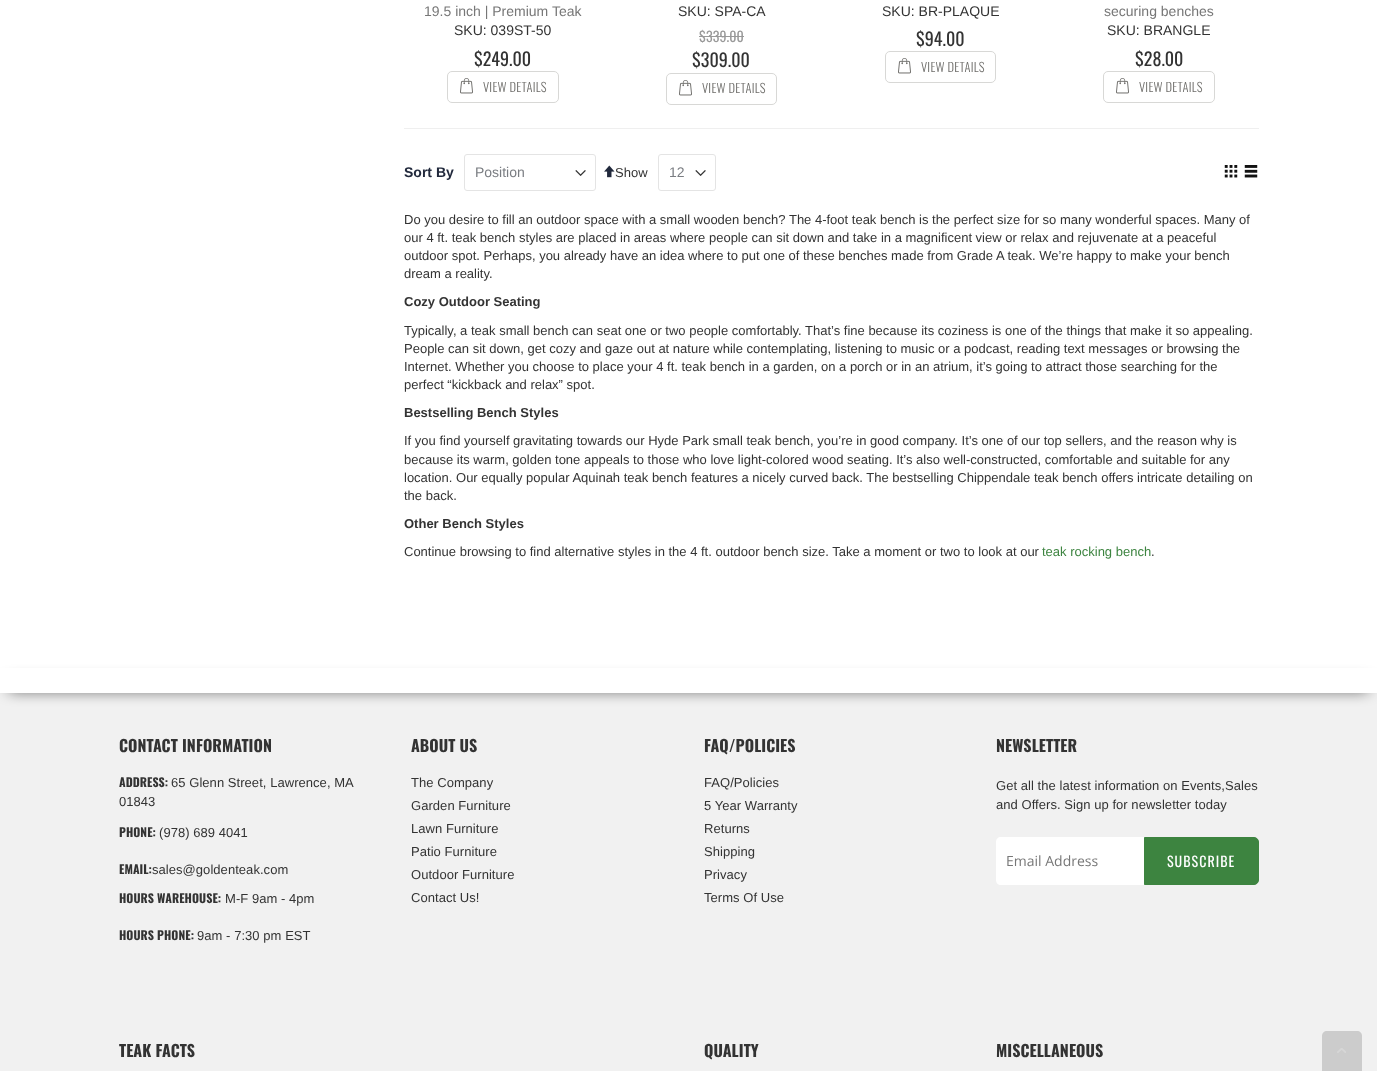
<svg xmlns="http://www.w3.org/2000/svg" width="1377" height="1071">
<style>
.a{font:14px Liberation Sans;fill:#777}
.b{font:14px Liberation Sans;fill:#333}
.c{font:18px Oswald;fill:#333}
.d{font:300 12.5px Oswald;letter-spacing:0.25px;fill:#6f6e6b}
.e{font:14px Oswald;letter-spacing:0.05px;fill:#999}
.f{font:bold 14px Liberation Sans;fill:#21293c}
.g{font:14px Liberation Sans;fill:#7a7d82}
.h{font:13px Liberation Sans;fill:#333}
.i{font:bold 13px Liberation Sans;fill:#333}
.j{font:13px Liberation Sans;fill:#3d8440}
.k{font:bold 16px Oswald;letter-spacing:0.05px;fill:#333}
.l{font:bold 12px Oswald;letter-spacing:0.05px;fill:#333}
.m{font:13px Liberation Sans;letter-spacing:0.05px;fill:#333}
.n{font:14px Open Sans;fill:#777}
.o{font:14px Oswald;letter-spacing:1px;fill:#fff}
</style>
<defs>
<clipPath id="clip1"><path d="M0 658h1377v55h-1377zm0 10h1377v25h-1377z" clip-rule="evenodd"/></clipPath>
</defs>
<rect width="100%" height="100%" fill="#fff"/>
<rect fill="none" stroke="#d8d8d6" x="447.5" y="71.5" width="111" height="31" rx="4.5"/>
<image href="1.png" x="460" y="78" width="13" height="16"/>
<path fill="#999" d="M699 36h45v1H699z"/>
<rect fill="none" stroke="#d8d8d6" x="666.5" y="73.5" width="110" height="31" rx="4.5"/>
<image href="1.png" x="679" y="80" width="13" height="16"/>
<rect fill="none" stroke="#d8d8d6" x="885.5" y="51.5" width="110" height="31" rx="4.5"/>
<image href="1.png" x="898" y="58" width="13" height="16"/>
<rect fill="none" stroke="#d8d8d6" x="1103.5" y="71.5" width="111" height="31" rx="4.5"/>
<image href="1.png" x="1116" y="78" width="13" height="16"/>
<path fill="#efefef" d="M404 128h855v1H404z"/>
<image href="2.png" x="575" y="170" width="11" height="6"/>
<rect fill="none" stroke="#e4e4e4" x="464.5" y="154.5" width="131" height="36" rx="2.5"/>
<image href="3.png" x="604" y="165" width="11" height="13"/>
<image href="2.png" x="695" y="170" width="11" height="6"/>
<rect fill="none" stroke="#e4e4e4" x="658.5" y="154.5" width="57" height="36" rx="2.5"/>
<image href="4.png" x="1224" y="165" width="14" height="13"/>
<image href="5.png" x="1244" y="165" width="14" height="13"/>
<path fill="#f1f1f1" d="M0 693h1377v378H0z"/>
<g clip-path="url(#clip1)">
<path fill="#000" filter="blur(7.5px)" d="M9 682h1359v7H9z"/>
</g>
<path fill="#fff" d="M1001 837h143v48h-143c-3 0-5-2-5-5v-38c0-3 2-5 5-5z"/>
<path fill="#3d8440" stroke="#3d8440" d="M1144.5 837.5h109.5c2.5 0 4.5 2 4.5 4.5v38c0 2.5-2 4.5-4.5 4.5h-109.5z"/>
<path fill="#ccc" d="M1327 1031h30c3 0 5 2 5 5v35h-40v-35c0-3 2-5 5-5z"/>
<image href="6.png" x="1337" y="1048" width="9" height="5"/>
<text class="a" x="424" y="16">19.5 inch | Premium Teak</text>
<text class="b" x="454" y="35">SKU: 039ST-50</text>
<text class="c" x="474" y="66">$249.00</text>
<text class="d" x="483" y="92">VIEW DETAILS</text>
<text class="b" x="678" y="16">SKU: SPA-CA</text>
<text class="e" x="699" y="42">$339.00</text>
<text class="c" x="692" y="67">$309.00</text>
<text class="d" x="702" y="93">VIEW DETAILS</text>
<text class="b" x="882" y="16">SKU: BR-PLAQUE</text>
<text class="c" x="916" y="46">$94.00</text>
<text class="d" x="921" y="72">VIEW DETAILS</text>
<text class="a" x="1104" y="16">securing benches</text>
<text class="b" x="1107" y="35">SKU: BRANGLE</text>
<text class="c" x="1135" y="66">$28.00</text>
<text class="d" x="1139" y="92">VIEW DETAILS</text>
<text class="f" x="404" y="177">Sort By</text>
<text class="g" x="475" y="177">Position</text>
<text class="h" x="615" y="177">Show</text>
<text class="g" x="669" y="177">12</text>
<text class="h" x="404" y="224">Do you desire to fill an outdoor space with a small wooden bench? The 4-foot teak bench is the perfect size for so many wonderful spaces. Many of</text>
<text class="h" x="404" y="242">our 4 ft. teak bench styles are placed in areas where people can sit down and take in a magnificent view or relax and rejuvenate at a peaceful</text>
<text class="h" x="404" y="260">outdoor spot. Perhaps, you already have an idea where to put one of these benches made from Grade A teak. We’re happy to make your bench</text>
<text class="h" x="404" y="278">dream a reality.</text>
<text class="i" x="404" y="306">Cozy Outdoor Seating</text>
<text class="h" x="404" y="335">Typically, a teak small bench can seat one or two people comfortably. That’s fine because its coziness is one of the things that make it so appealing.</text>
<text class="h" x="404" y="353">People can sit down, get cozy and gaze out at nature while contemplating, listening to music or a podcast, reading text messages or browsing the</text>
<text class="h" x="404" y="371">Internet. Whether you choose to place your 4 ft. teak bench in a garden, on a porch or in an atrium, it’s going to attract those searching for the</text>
<text class="h" x="404" y="389">perfect “kickback and relax” spot.</text>
<text class="i" x="404" y="417">Bestselling Bench Styles</text>
<text class="h" x="404" y="445">If you find yourself gravitating towards our Hyde Park small teak bench, you’re in good company. It’s one of our top sellers, and the reason why is</text>
<text class="h" x="404" y="464">because its warm, golden tone appeals to those who love light-colored wood seating. It’s also well-constructed, comfortable and suitable for any</text>
<text class="h" x="404" y="482">location. Our equally popular Aquinah teak bench features a nicely curved back. The bestselling Chippendale teak bench offers intricate detailing on</text>
<text class="h" x="404" y="500">the back.</text>
<text class="i" x="404" y="528">Other Bench Styles</text>
<text class="h" x="404" y="556">Continue browsing to find alternative styles in the 4 ft. outdoor bench size. Take a moment or two to look at our</text>
<text class="j" x="1042" y="556">teak rocking bench</text>
<text class="h" x="1151" y="556">.</text>
<text class="k" x="119" y="752">CONTACT INFORMATION</text>
<text class="l" x="119" y="787">ADDRESS:</text>
<text class="m" x="171" y="787">65 Glenn Street, Lawrence, MA</text>
<text class="m" x="119" y="806">01843</text>
<text class="l" x="119" y="837">PHONE:</text>
<text class="m" x="159" y="837">(978) 689 4041</text>
<text class="l" x="119" y="874">EMAIL:</text>
<text class="m" x="152" y="874">sales@goldenteak.com</text>
<text class="l" x="119" y="903">HOURS WAREHOUSE:</text>
<text class="m" x="225" y="903">M-F 9am - 4pm</text>
<text class="l" x="119" y="940">HOURS PHONE:</text>
<text class="m" x="197" y="940">9am - 7:30 pm EST</text>
<text class="k" x="411" y="752">ABOUT US</text>
<text class="m" x="411" y="787">The Company</text>
<text class="m" x="411" y="810">Garden Furniture</text>
<text class="m" x="411" y="833">Lawn Furniture</text>
<text class="m" x="411" y="856">Patio Furniture</text>
<text class="m" x="411" y="879">Outdoor Furniture</text>
<text class="m" x="411" y="902">Contact Us!</text>
<text class="k" x="704" y="752">FAQ/POLICIES</text>
<text class="m" x="704" y="787">FAQ/Policies</text>
<text class="m" x="704" y="810">5 Year Warranty</text>
<text class="m" x="704" y="833">Returns</text>
<text class="m" x="704" y="856">Shipping</text>
<text class="m" x="704" y="879">Privacy</text>
<text class="m" x="704" y="902">Terms Of Use</text>
<text class="k" x="996" y="752">NEWSLETTER</text>
<text class="m" x="996" y="790">Get all the latest information on Events,Sales</text>
<text class="m" x="996" y="809">and Offers. Sign up for newsletter today</text>
<text class="n" x="1006" y="866">Email Address</text>
<text class="o" x="1167" y="867">SUBSCRIBE</text>
<text class="k" x="119" y="1057">TEAK FACTS</text>
<text class="k" x="704" y="1057">QUALITY</text>
<text class="k" x="996" y="1057">MISCELLANEOUS</text>
</svg>
